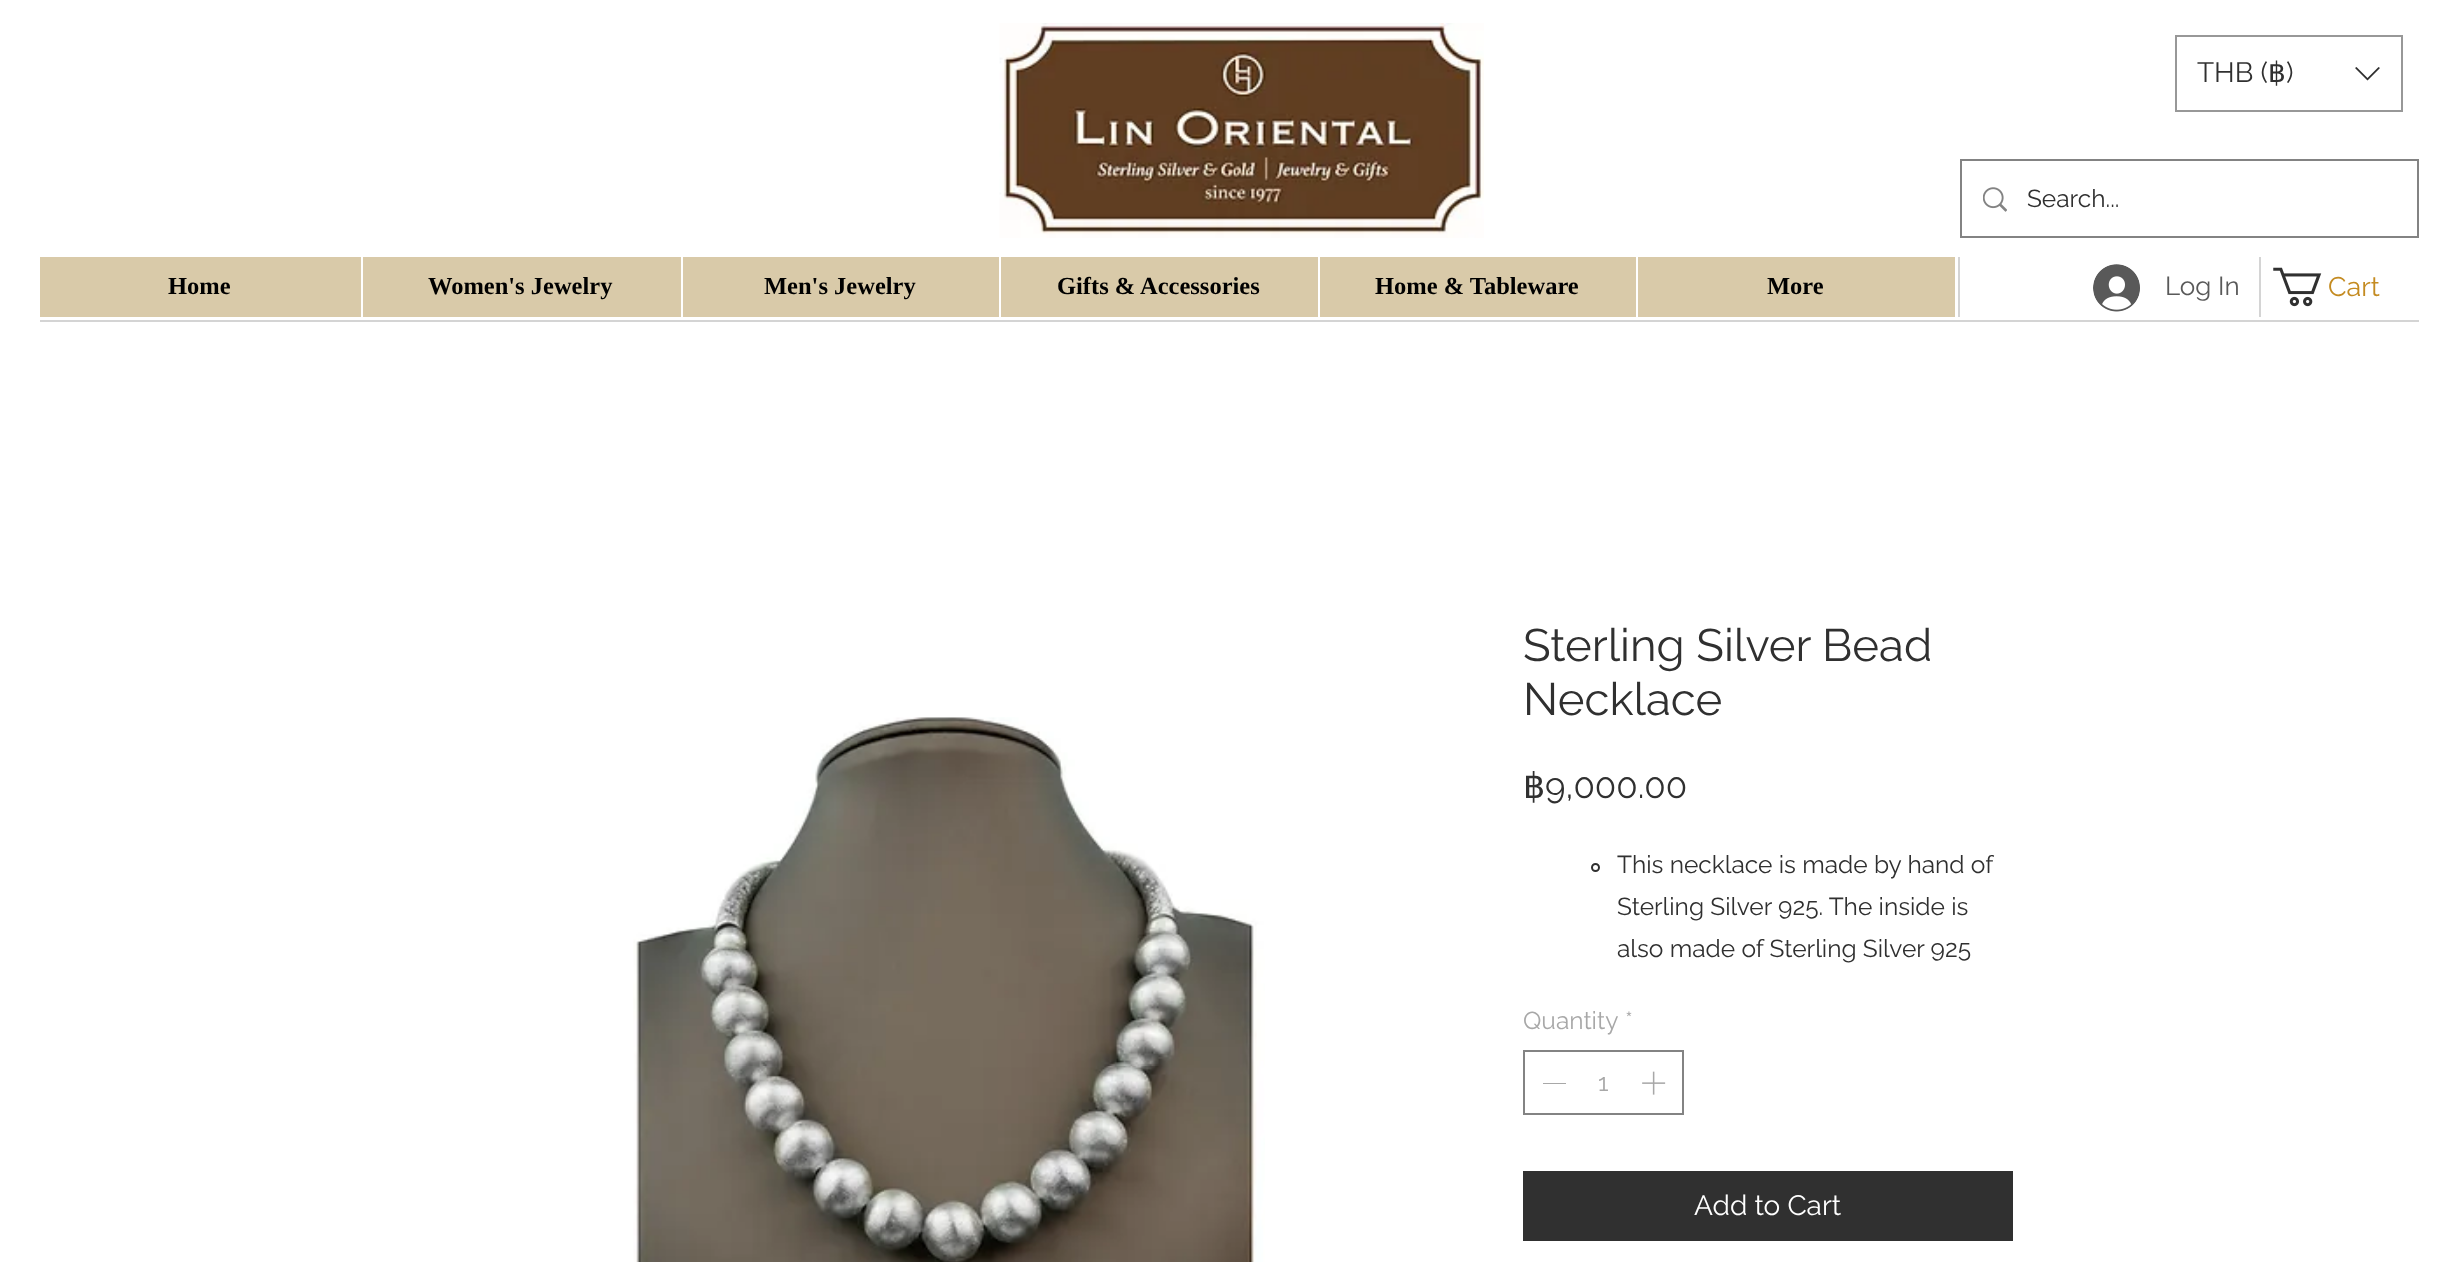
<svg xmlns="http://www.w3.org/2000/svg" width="2451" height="1262">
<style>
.a{font:28px Raleway;fill:#303030}
.b{font:28px DejaVu Sans;fill:#303030}
.c{font:24.5px Raleway;fill:#303030}
.d{font:bold 24.5px Liberation Serif;fill:#000}
.e{font:26px Raleway;fill:#595959}
.f{font:27px Raleway;fill:#c48b21}
.g{font:45.5px Raleway;fill:#303030}
.h{font:35px DejaVu Sans;fill:#303030}
.i{font:35px Raleway;fill:#303030}
.j{font:24.5px Raleway;fill:#a8a8a8}
.k{font:28px Raleway;fill:#fff}
</style>
<rect width="100%" height="100%" fill="#fff"/>
<image href="1.png" x="999" y="23" width="485" height="215"/>
<path fill="none" stroke="#989898" stroke-width="2" d="M2176 36h226v75H2176z"/>
<path fill="#303030" fill-rule="evenodd" d="M2378.5 67l1.5 1l-12.5 12.5l-12.5-12.5l1.5-1l11 11z"/>
<path fill="none" stroke="#838383" stroke-width="2" d="M1961 160h457v77H1961z"/>
<image href="2.png" x="1983" y="187" width="24" height="25"/>
<path fill="#d9caa9" d="M40 257h1915v60H40z"/>
<path fill="#fff" d="M361 257h2v60H361z"/>
<path fill="#fff" d="M681 257h2v60H681z"/>
<path fill="#fff" d="M999 257h2v60H999z"/>
<path fill="#fff" d="M1318 257h2v60H1318z"/>
<path fill="#fff" d="M1636 257h2v60H1636z"/>
<path fill="#d4d4d4" d="M1958 257h2v60H1958z"/>
<image href="3.png" x="2093" y="264" width="47" height="48"/>
<path fill="#d4d4d4" d="M2259 257h2v60H2259z"/>
<image href="4.png" x="2273" y="267" width="49" height="40"/>
<path fill="#d4d4d4" d="M40 320h2379v2H40z"/>
<image href="5.png" x="633" y="717" width="632" height="545"/>
<circle fill="none" stroke="#303030" stroke-width="2" cx="1595.5" cy="867.5" r="3.5"/>
<path fill="none" stroke="#838383" stroke-width="2" d="M1524 1051h159v63H1524z"/>
<path fill="#a8a8a8" d="M1543 1083h23v1H1543z"/>
<image href="6.png" x="1642" y="1071" width="24" height="24"/>
<path fill="#303030" d="M1523 1171h490v70H1523z"/>
<text class="a" x="2197" y="82">THB (</text>
<text class="b" x="2268" y="82">฿</text>
<text class="a" x="2286" y="82">)</text>
<text class="c" x="2027" y="207">Search...</text>
<text class="d" x="168" y="294">Home</text>
<text class="d" x="428" y="294">Women's Jewelry</text>
<text class="d" x="764" y="294">Men's Jewelry</text>
<text class="d" x="1057" y="294">Gifts &amp; Accessories</text>
<text class="d" x="1375" y="294">Home &amp; Tableware</text>
<text class="d" x="1767" y="294">More</text>
<text class="e" x="2165" y="295">Log In</text>
<text class="f" x="2328" y="296">Cart</text>
<text class="g" x="1523" y="661">Sterling Silver Bead</text>
<text class="g" x="1523" y="715">Necklace</text>
<text class="h" x="1523" y="798">฿</text>
<text class="i" x="1545" y="798">9,000.00</text>
<text class="c" x="1617" y="873">This necklace is made by hand of</text>
<text class="c" x="1617" y="915">Sterling Silver 925. The inside is</text>
<text class="c" x="1617" y="957">also made of Sterling Silver 925</text>
<text class="j" x="1523" y="1029">Quantity</text>
<text class="j" x="1625" y="1029">*</text>
<text class="j" x="1598" y="1091">1</text>
<text class="k" x="1694" y="1215">Add to Cart</text>
</svg>
